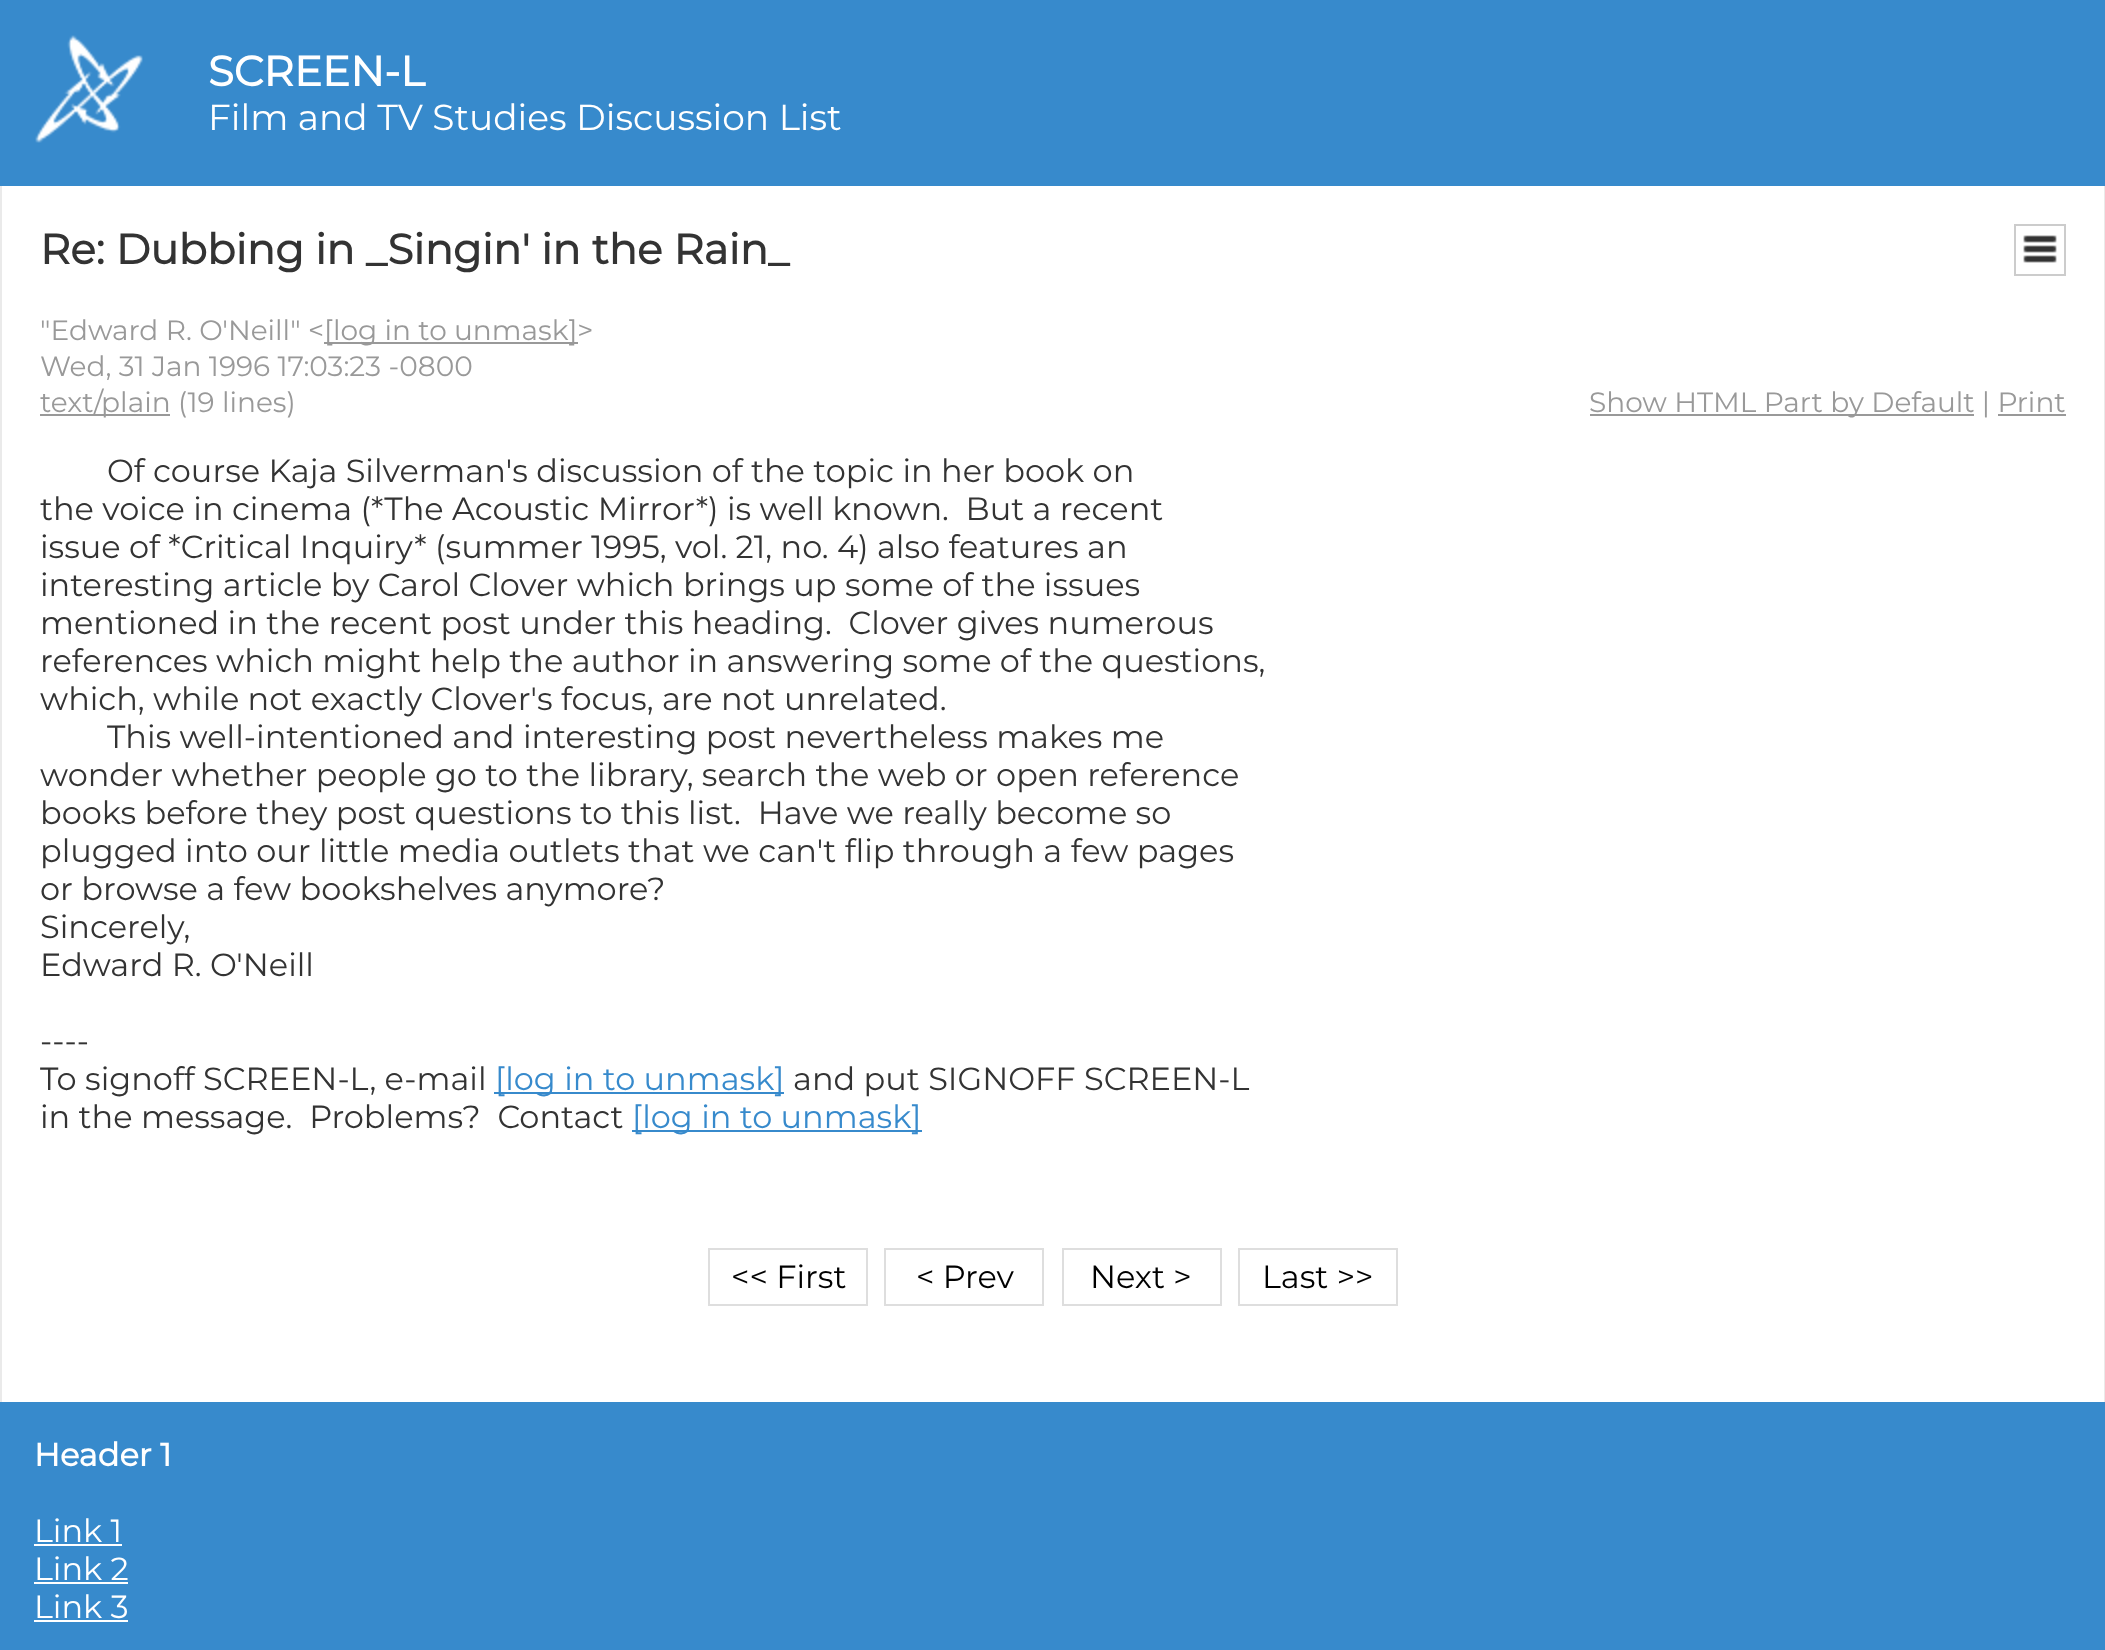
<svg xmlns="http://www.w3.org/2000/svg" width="2105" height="1650">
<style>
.a{font:bold 42px Montserrat;fill:#fff}
.b{font:100 36px Montserrat;fill:#fff}
.c{font:bold 42px Montserrat;fill:#333}
.d{font:100 28px Montserrat;fill:#999}
.e{font:100 32px Montserrat;fill:#333}
.f{font:100 32px Montserrat;fill:#378acc}
.g{font:100 32px Montserrat;fill:#000}
.h{font:bold 32px Montserrat;fill:#fff}
.i{font:100 32px Montserrat;fill:#fff}
</style>
<rect width="100%" height="100%" fill="#378acc"/>
<image href="1.png" x="35" y="35" width="108" height="108"/>
<path fill="#fff" d="M2 186h2102v1216H2z"/>
<path fill="#eaeaea" d="M2104 186h1v1216H2104z"/>
<path fill="#eaeaea" d="M0 186h2v1216H0z"/>
<path fill="none" stroke="#ccc" stroke-width="2" d="M2015 225h50v50H2015z"/>
<image href="2.png" x="2023" y="235" width="34" height="28"/>
<path fill="#999" d="M324 342h254v2H324z"/>
<path fill="#999" d="M40 414h130v2H40z"/>
<path fill="#999" d="M1590 414h384v2H1590z"/>
<path fill="#999" d="M1998 414h68v2H1998z"/>
<path fill="#378acc" d="M494 1092h290v2H494z"/>
<path fill="#378acc" d="M632 1130h290v2H632z"/>
<path fill="none" stroke="#dedede" stroke-width="2" d="M709 1249h158v56H709z"/>
<path fill="none" stroke="#dedede" stroke-width="2" d="M885 1249h158v56H885z"/>
<path fill="none" stroke="#dedede" stroke-width="2" d="M1063 1249h158v56H1063z"/>
<path fill="none" stroke="#dedede" stroke-width="2" d="M1239 1249h158v56H1239z"/>
<path fill="#fff" d="M34 1544h88v2H34z"/>
<path fill="#fff" d="M34 1582h94v2H34z"/>
<path fill="#fff" d="M34 1620h94v2H34z"/>
<text class="a" x="208" y="86">SCREEN-L</text>
<text class="b" x="208" y="130">Film and TV Studies Discussion List</text>
<text class="c" x="40" y="264">Re: Dubbing in _Singin' in the Rain_</text>
<text class="d" x="40" y="340">"Edward R. O'Neill" &lt;</text>
<text class="d" x="324" y="340">[log in to unmask]&gt;</text>
<text class="d" x="40" y="376">Wed, 31 Jan 1996 17:03:23 -0800</text>
<text class="d" x="40" y="412">text/plain (19 lines)</text>
<text class="d" x="1589" y="412">Show HTML Part by Default | Print</text>
<text class="e" x="107" y="482">Of course Kaja Silverman's discussion of the topic in her book on</text>
<text class="e" xml:space="preserve" x="40" y="520">the voice in cinema (*The Acoustic Mirror*) is well known.  But a recent</text>
<text class="e" x="40" y="558">issue of *Critical Inquiry* (summer 1995, vol. 21, no. 4) also features an</text>
<text class="e" x="40" y="596">interesting article by Carol Clover which brings up some of the issues</text>
<text class="e" xml:space="preserve" x="40" y="634">mentioned in the recent post under this heading.  Clover gives numerous</text>
<text class="e" x="40" y="672">references which might help the author in answering some of the questions,</text>
<text class="e" x="40" y="710">which, while not exactly Clover's focus, are not unrelated.</text>
<text class="e" x="107" y="748">This well-intentioned and interesting post nevertheless makes me</text>
<text class="e" x="40" y="786">wonder whether people go to the library, search the web or open reference</text>
<text class="e" xml:space="preserve" x="40" y="824">books before they post questions to this list.  Have we really become so</text>
<text class="e" x="40" y="862">plugged into our little media outlets that we can't flip through a few pages</text>
<text class="e" x="40" y="900">or browse a few bookshelves anymore?</text>
<text class="e" x="40" y="938">Sincerely,</text>
<text class="e" x="40" y="976">Edward R. O'Neill</text>
<text class="e" x="40" y="1052">----</text>
<text class="e" x="40" y="1090">To signoff SCREEN-L, e-mail</text>
<text class="f" x="495" y="1090">[log in to unmask]</text>
<text class="e" x="793" y="1090">and put SIGNOFF SCREEN-L</text>
<text class="e" xml:space="preserve" x="40" y="1128">in the message.  Problems?  Contact</text>
<text class="f" x="632" y="1128">[log in to unmask]</text>
<text class="g" x="731" y="1288">&lt;&lt; First</text>
<text class="g" x="916" y="1288">&lt; Prev</text>
<text class="g" x="1090" y="1288">Next &gt;</text>
<text class="g" x="1262" y="1288">Last &gt;&gt;</text>
<text class="h" x="34" y="1466">Header 1</text>
<text class="i" x="34" y="1542">Link 1</text>
<text class="i" x="34" y="1580">Link 2</text>
<text class="i" x="34" y="1618">Link 3</text>
</svg>
